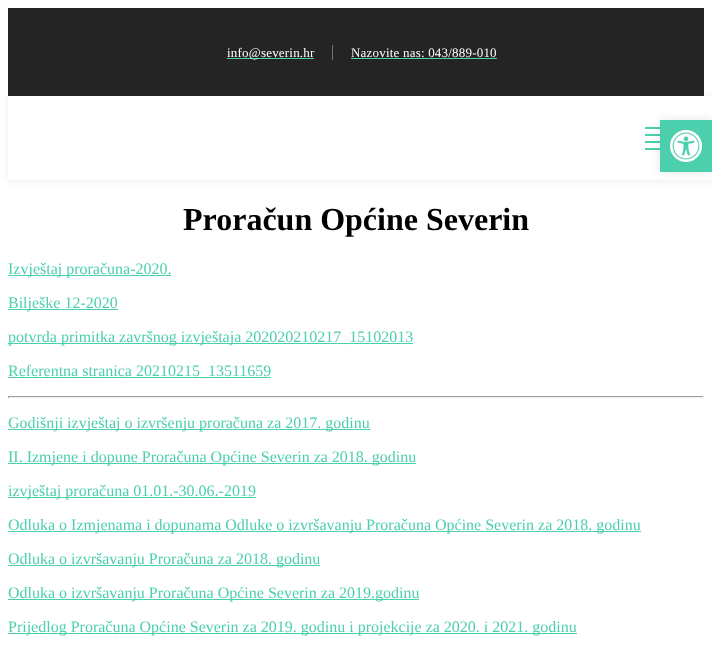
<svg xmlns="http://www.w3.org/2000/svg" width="712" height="662">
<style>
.a{font:13px Liberation Serif;letter-spacing:0.2px;fill:#fff}
.b{font:bold 32px Liberation Serif;fill:#000}
.c{font:16px Liberation Serif;fill:#4ccfad}
</style>
<defs>
<clipPath id="clip1"><path d="M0 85h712v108h-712zm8 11h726v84h-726z" clip-rule="evenodd"/></clipPath>
</defs>
<rect width="100%" height="100%" fill="#fff"/>
<path fill="#242424" d="M8 8h696v88H8z"/>
<path fill="#737373" d="M332 45h1v15H332z"/>
<path fill="#4ccfad" d="M227 58h87v1H227z"/>
<path fill="#4ccfad" d="M351 58h146v1H351z"/>
<g clip-path="url(#clip1)">
<path fill="#00000014" filter="blur(3.5px)" d="M8 97h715v84H8z"/>
</g>
<path fill="#4ccfad" d="M645 127h15v2H645z"/>
<path fill="#4ccfad" d="M645 134h20v2H645z"/>
<path fill="#4ccfad" d="M645 141h20v2H645z"/>
<path fill="#4ccfad" d="M645 148h15v2H645z"/>
<path fill="#4ccfad" d="M8 275h163v1H8z"/>
<path fill="#4ccfad" d="M8 309h110v1H8z"/>
<path fill="#4ccfad" d="M8 343h405v1H8z"/>
<path fill="#4ccfad" d="M8 377h263v1H8z"/>
<path fill="#9f9f9f" d="M8 396h696v1H8z"/>
<path fill="#eee" d="M703 396h1v2H703z"/>
<path fill="#eee" d="M8 397h696v1H8z"/>
<path fill="#9f9f9f" d="M8 396h1v2H8z"/>
<path fill="#4ccfad" d="M8 429h362v1H8z"/>
<path fill="#4ccfad" d="M8 463h408v1H8z"/>
<path fill="#4ccfad" d="M8 497h248v1H8z"/>
<path fill="#4ccfad" d="M8 531h633v1H8z"/>
<path fill="#4ccfad" d="M8 565h312v1H8z"/>
<path fill="#4ccfad" d="M8 599h411v1H8z"/>
<path fill="#4ccfad" d="M8 633h569v1H8z"/>
<path fill="#0000001a" filter="blur(5px)" d="M660 120h52v52H660z"/>
<path fill="#4ccfad" d="M660 120h52v52H660z"/>
<image href="1.png" x="670" y="130" width="32" height="32"/>
<text class="a" x="227" y="57">info@severin.hr</text>
<text class="a" x="351" y="57">Nazovite nas: 043/889-010</text>
<text class="b" x="183" y="230">Proračun Općine Severin</text>
<text class="c" x="8" y="274">Izvještaj proračuna-2020.</text>
<text class="c" x="8" y="308">Bilješke 12-2020</text>
<text class="c" x="8" y="342">potvrda primitka završnog izvještaja 202020210217_15102013</text>
<text class="c" x="8" y="376">Referentna stranica 20210215_13511659</text>
<text class="c" x="8" y="428">Godišnji izvještaj o izvršenju proračuna za 2017. godinu</text>
<text class="c" x="8" y="462">II. Izmjene i dopune Proračuna Općine Severin za 2018. godinu</text>
<text class="c" x="8" y="496">izvještaj proračuna 01.01.-30.06.-2019</text>
<text class="c" x="8" y="530">Odluka o Izmjenama i dopunama Odluke o izvršavanju Proračuna Općine Severin za 2018. godinu</text>
<text class="c" x="8" y="564">Odluka o izvršavanju Proračuna za 2018. godinu</text>
<text class="c" x="8" y="598">Odluka o izvršavanju Proračuna Općine Severin za 2019.godinu</text>
<text class="c" x="8" y="632">Prijedlog Proračuna Općine Severin za 2019. godinu i projekcije za 2020. i 2021. godinu</text>
</svg>
